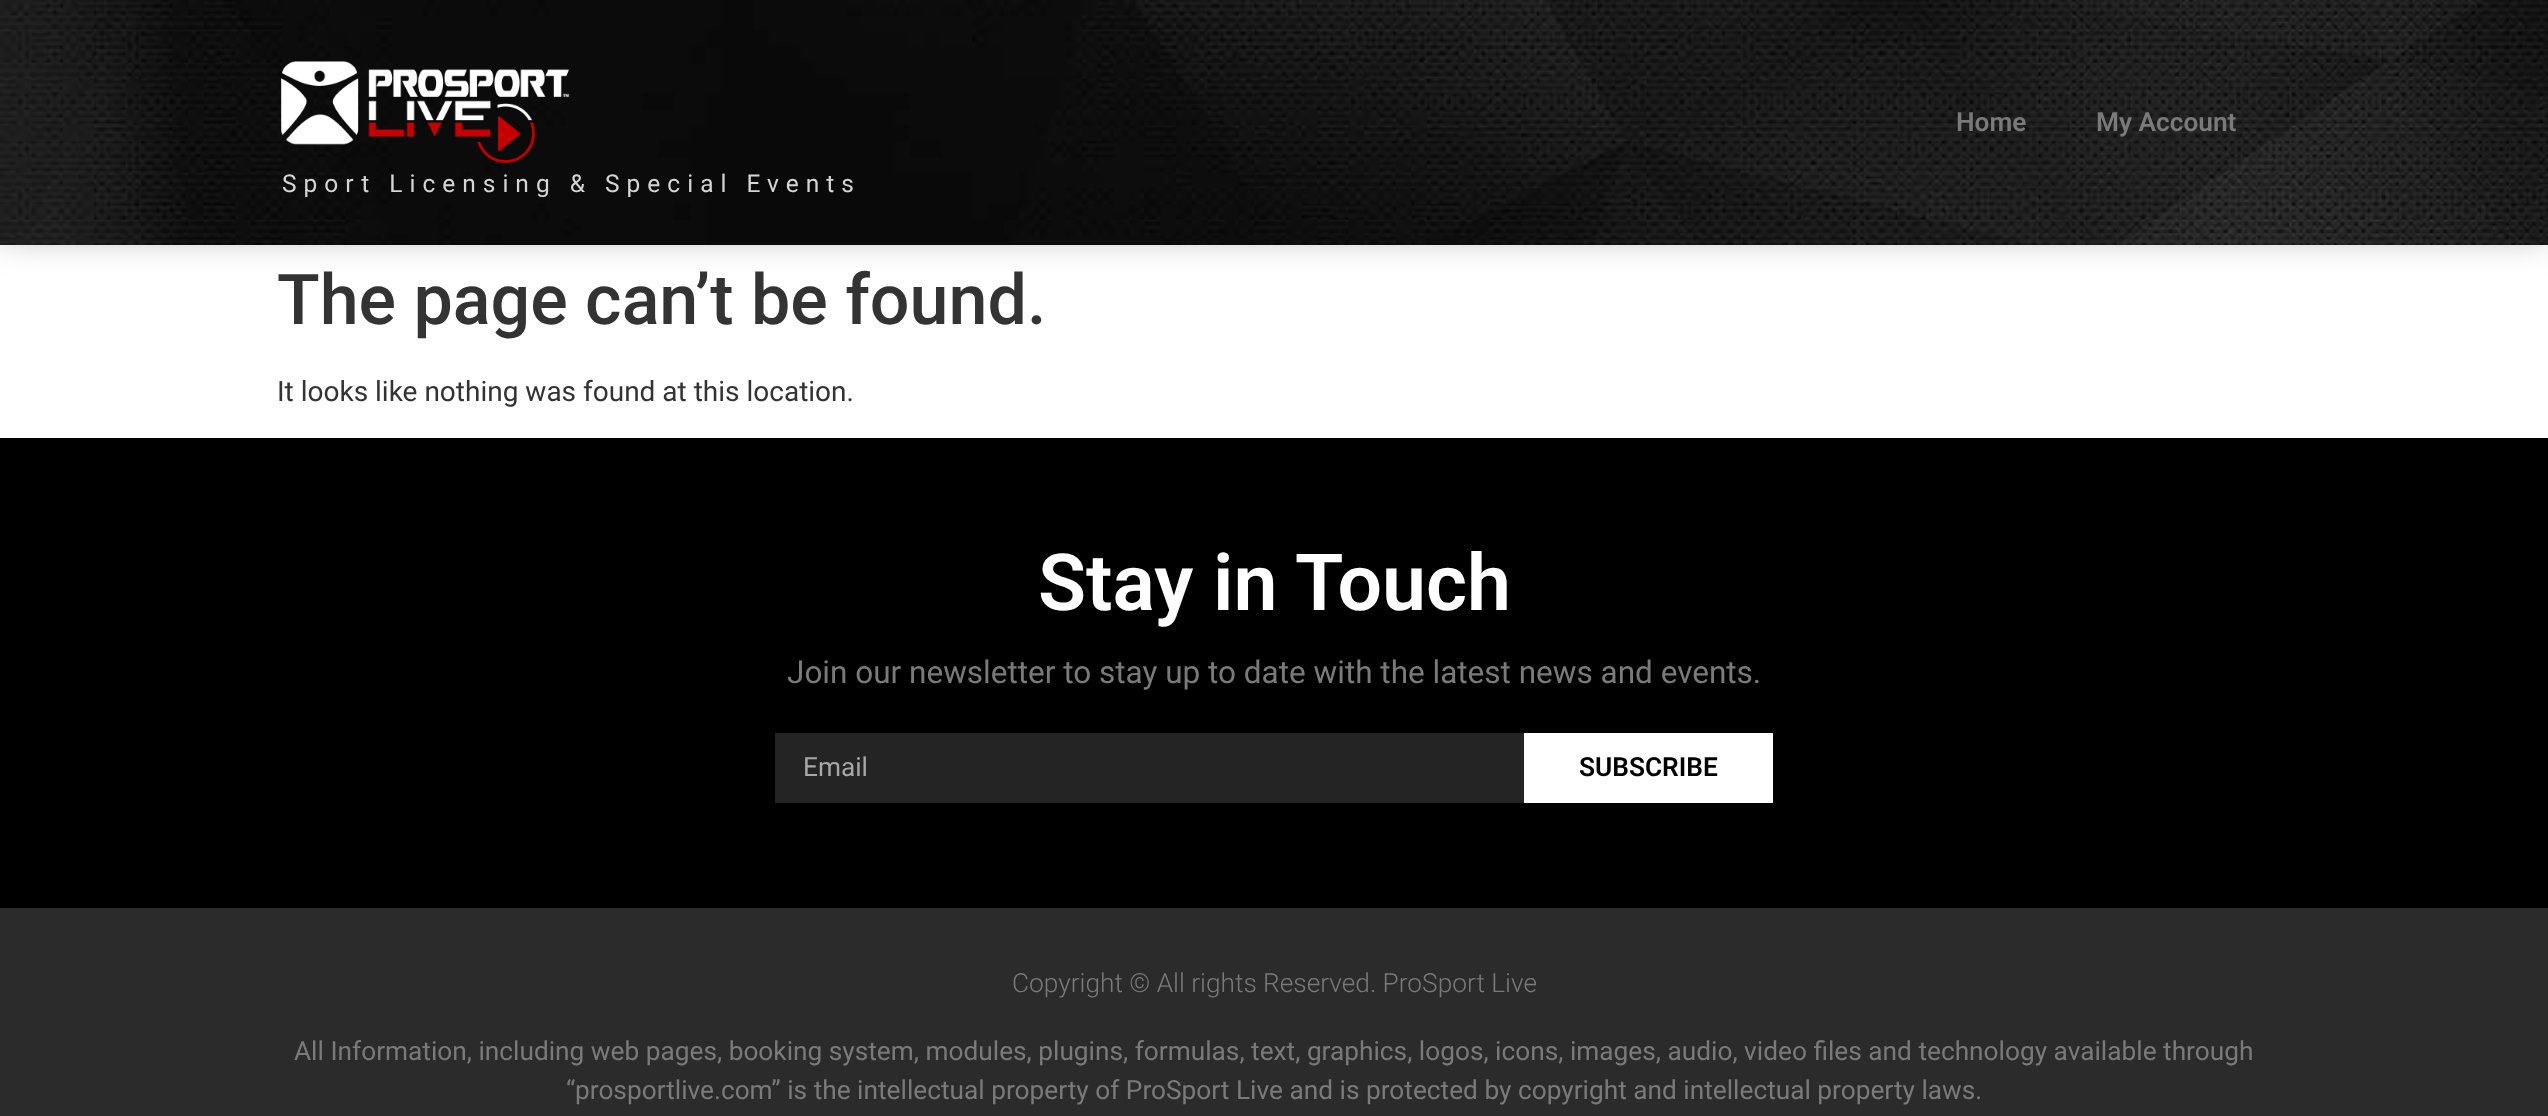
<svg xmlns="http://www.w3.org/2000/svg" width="2548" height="1116">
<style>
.a{font:600 26.25px Roboto;fill:#7a7a7a}
.b{font:24.5px Roboto;letter-spacing:7px;fill:#d5d5d5}
.c{font:500 70px Roboto;fill:#333}
.d{font:28px Roboto;fill:#333}
.e{font:600 78.75px Roboto;fill:#fff}
.f{font:31.5px Roboto;fill:#7a7a7a}
.g{font:26.25px Roboto;fill:#a7a7a7}
.h{font:600 26.25px Roboto;fill:#000}
.i{font:300 26.25px Roboto;fill:#7a7a7a}
.j{font:26.25px Roboto;fill:#7a7a7a}
</style>
<rect width="100%" height="100%" fill="#fff"/>
<path fill="#919191ab" filter="blur(16.5px)" d="M0 -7h2548v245H0z"/>
<image href="1.png" x="0" y="0" width="2548" height="245"/>
<image href="2.png" x="281" y="61" width="289" height="103"/>
<path fill="#000" d="M0 438h2548v470H0z"/>
<path fill="#242424" d="M775 733h749v70H775z"/>
<path fill="#fff" d="M1524 733h249v70H1524z"/>
<path fill="#2b2b2b" d="M0 908h2548v208H0z"/>
<text class="a" x="1956" y="131">Home</text>
<text class="a" x="2096" y="131">My Account</text>
<text class="b" x="282" y="192">Sport Licensing &amp; Special Events</text>
<text class="c" x="277" y="324">The page can’t be found.</text>
<text class="d" x="277" y="401">It looks like nothing was found at this location.</text>
<text class="e" x="1038" y="610">Stay in Touch</text>
<text class="f" x="787" y="683">Join our newsletter to stay up to date with the latest news and events.</text>
<text class="g" x="803" y="776">Email</text>
<text class="h" x="1579" y="776">SUBSCRIBE</text>
<text class="i" x="1012" y="992">Copyright © All rights Reserved. ProSport Live</text>
<text class="j" x="294" y="1060">All Information, including web pages, booking system, modules, plugins, formulas, text, graphics, logos, icons, images, audio, video files and technology available through</text>
<text class="j" x="566" y="1099">“prosportlive.com” is the intellectual property of ProSport Live and is protected by copyright and intellectual property laws.</text>
</svg>
